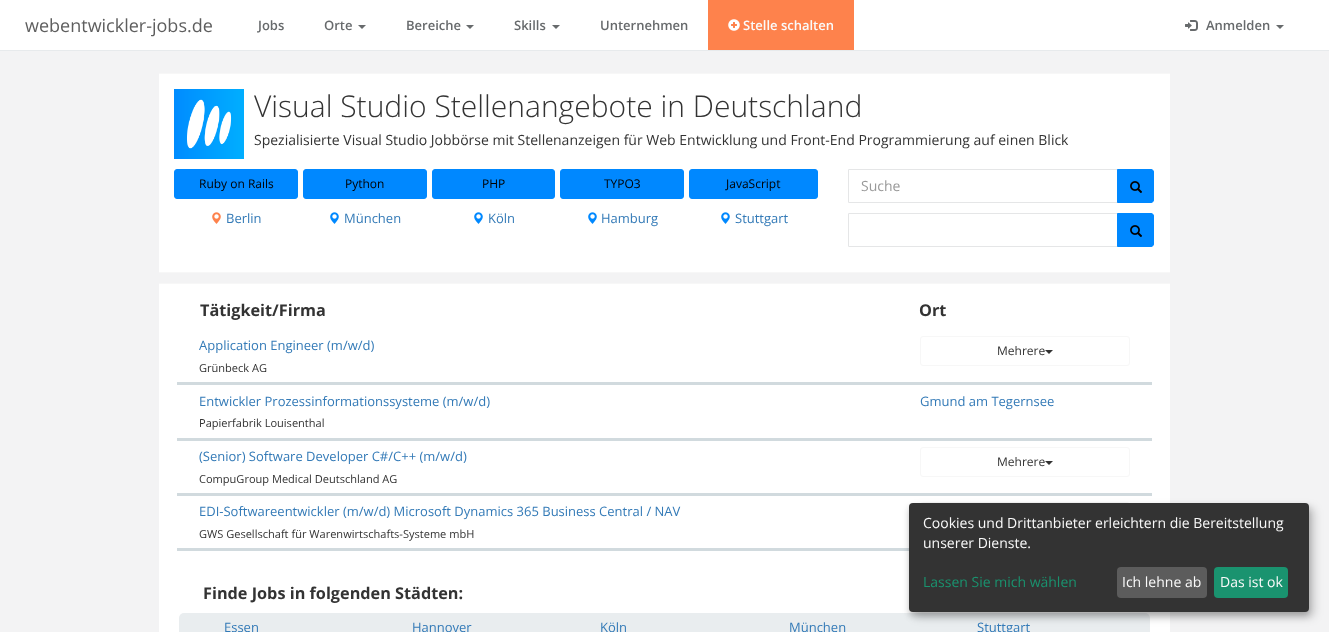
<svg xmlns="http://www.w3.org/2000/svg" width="1329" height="632">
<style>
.a{font:18px Open Sans;fill:#5e5e5e}
.b{font:600 13px Open Sans;fill:#676a6c}
.c{font:600 13px Open Sans;fill:#fafafa}
.d{font:300 30px Open Sans;fill:#333}
.e{font:14px Open Sans;fill:#333}
.f{font:12px Open Sans;fill:#000}
.g{font:13px Open Sans;fill:#337ab7}
.h{font:14px Open Sans;fill:#999}
.i{font:bold 16.25px Open Sans;fill:#333}
.j{font:11.05px Open Sans;fill:#333}
.k{font:12px Open Sans;fill:#333}
.l{font:14px Open Sans;fill:#fafafa}
.m{font:14px Open Sans;fill:#1a936f}
</style>
<rect width="100%" height="100%" fill="#f3f3f4"/>
<path fill="#fff" d="M0 0h1329v50H0z"/>
<path fill="#e7eaec" d="M0 50h1329v1H0z"/>
<path fill="#676a6c" d="M358 25h8l-4 4z"/>
<path fill="#676a6c" d="M466 25h8l-4 4z"/>
<path fill="#676a6c" d="M552 25h8l-4 4z"/>
<path fill="#fe824c" d="M708 0h146v50H708z"/>
<image href="1.png" x="728" y="19" width="12" height="12"/>
<image href="2.png" x="1185" y="20" width="13" height="11"/>
<path fill="#676a6c" d="M1276 25h8l-4 4z"/>
<path fill="#fff" d="M159 74h1011v198H159z"/>
<path fill="#f7f7f7" d="M159 73h1011v1H159z"/>
<path fill="#f7f7f7" d="M159 272h1011v1H159z"/>
<image href="3.png" x="174" y="89" width="70" height="70"/>
<rect fill="#08f" stroke="#08f" x="174.5" y="169.5" width="123" height="29" rx="2.5"/>
<rect fill="#08f" stroke="#08f" x="303.5" y="169.5" width="123" height="29" rx="2.5"/>
<rect fill="#08f" stroke="#08f" x="432.5" y="169.5" width="122" height="29" rx="2.5"/>
<rect fill="#08f" stroke="#08f" x="560.5" y="169.5" width="123" height="29" rx="2.5"/>
<rect fill="#08f" stroke="#08f" x="689.5" y="169.5" width="128" height="29" rx="2.5"/>
<image href="4.png" x="212" y="212" width="9" height="12"/>
<image href="5.png" x="330" y="212" width="9" height="12"/>
<image href="5.png" x="474" y="212" width="9" height="12"/>
<image href="5.png" x="588" y="212" width="9" height="12"/>
<image href="5.png" x="721" y="212" width="9" height="12"/>
<path fill="none" stroke="#e5e6e7" d="M849 169.5h268.5v33h-268.5c-.5 0-.5 0-.5-.5v-32c0-.5 0-.5 .5-.5z"/>
<path fill="#08f" stroke="#08f" d="M1117.5 169.5h33.5c1.5 0 2.5 1 2.5 2.5v28c0 1.5-1 2.5-2.5 2.5h-33.5z"/>
<image href="6.png" x="1130" y="181" width="12" height="12"/>
<path fill="none" stroke="#e5e6e7" d="M849 213.5h268.5v33h-268.5c-.5 0-.5 0-.5-.5v-32c0-.5 0-.5 .5-.5z"/>
<path fill="#08f" stroke="#08f" d="M1117.5 213.5h33.5c1.5 0 2.5 1 2.5 2.5v28c0 1.5-1 2.5-2.5 2.5h-33.5z"/>
<image href="6.png" x="1130" y="225" width="12" height="12"/>
<path fill="#fff" d="M159 284h1011v348H159z"/>
<path fill="#f7f7f7" d="M159 283h1011v1H159z"/>
<path fill="#d1dade" d="M177 382h975v3H177z"/>
<rect fill="none" stroke="#f7f7f7" x="920.5" y="336.5" width="209" height="29" rx="2.5"/>
<path fill="#333" d="M1045 350h8l-4 4z"/>
<path fill="#d1dade" d="M177 438h975v3H177z"/>
<path fill="#d1dade" d="M177 493h975v3H177z"/>
<rect fill="none" stroke="#f7f7f7" x="920.5" y="447.5" width="209" height="29" rx="2.5"/>
<path fill="#333" d="M1045 461h8l-4 4z"/>
<path fill="#d1dade" d="M177 548h732v3H177z"/>
<rect fill="none" stroke="#f7f7f7" x="920.5" y="502.5" width="209" height="29" rx="2.5"/>
<rect fill="#e9edef" x="179" y="613" width="971" height="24" rx="5"/>
<rect fill="#00000030" filter="blur(5px)" x="914" y="508" width="400" height="109" rx="4"/>
<rect fill="#00000033" filter="blur(3px)" x="909" y="507" width="400" height="109" rx="4"/>
<rect fill="#333" x="909" y="503" width="400" height="109" rx="4"/>
<rect fill="#5c5c5c" x="1117" y="567" width="90" height="31" rx="4"/>
<rect fill="#1a936f" x="1214" y="567" width="74" height="31" rx="4"/>
<text class="a" x="25" y="32">webentwickler-jobs.de</text>
<text class="b" x="258" y="30">Jobs</text>
<text class="b" x="324" y="30">Orte</text>
<text class="b" x="406" y="30">Bereiche</text>
<text class="b" x="514" y="30">Skills</text>
<text class="b" x="600" y="30">Unternehmen</text>
<text class="c" x="743" y="30">Stelle schalten</text>
<text class="b" x="1206" y="30">Anmelden</text>
<text class="d" x="254" y="117">Visual Studio Stellenangebote in Deutschland</text>
<text class="e" x="254" y="145">Spezialisierte Visual Studio Jobbörse mit Stellenanzeigen für Web Entwicklung und Front-End Programmierung auf einen Blick</text>
<text class="f" x="199" y="188">Ruby on Rails</text>
<text class="f" x="345" y="188">Python</text>
<text class="f" x="482" y="188">PHP</text>
<text class="f" x="604" y="188">TYPO3</text>
<text class="f" x="726" y="188">JavaScript</text>
<text class="g" x="226" y="223">Berlin</text>
<text class="g" x="344" y="223">München</text>
<text class="g" x="488" y="223">Köln</text>
<text class="g" x="601" y="223">Hamburg</text>
<text class="g" x="735" y="223">Stuttgart</text>
<text class="h" x="861" y="191">Suche</text>
<text class="i" x="200" y="316">Tätigkeit/Firma</text>
<text class="i" x="919" y="316">Ort</text>
<text class="g" x="199" y="350">Application Engineer (m/w/d)</text>
<text class="j" x="199" y="372">Grünbeck AG</text>
<text class="k" x="997" y="355">Mehrere</text>
<text class="g" x="199" y="406">Entwickler Prozessinformationssysteme (m/w/d)</text>
<text class="j" x="199" y="427">Papierfabrik Louisenthal</text>
<text class="g" x="920" y="406">Gmund am Tegernsee</text>
<text class="g" x="199" y="461">(Senior) Software Developer C#/C++ (m/w/d)</text>
<text class="j" x="199" y="483">CompuGroup Medical Deutschland AG</text>
<text class="k" x="997" y="466">Mehrere</text>
<text class="g" x="199" y="516">EDI-Softwareentwickler (m/w/d) Microsoft Dynamics 365 Business Central / NAV</text>
<text class="j" x="199" y="538">GWS Gesellschaft für Warenwirtschafts-Systeme mbH</text>
<text class="i" x="203" y="599">Finde Jobs in folgenden Städten:</text>
<text class="g" x="224" y="632">Essen</text>
<text class="g" x="412" y="632">Hannover</text>
<text class="g" x="600" y="632">Köln</text>
<text class="g" x="789" y="632">München</text>
<text class="g" x="977" y="632">Stuttgart</text>
<text class="l" x="923" y="528">Cookies und Drittanbieter erleichtern die Bereitstellung</text>
<text class="l" x="923" y="548">unserer Dienste.</text>
<text class="m" x="923" y="587">Lassen Sie mich wählen</text>
<text class="l" x="1122" y="587">Ich lehne ab</text>
<text class="l" x="1220" y="587">Das ist ok</text>
</svg>
